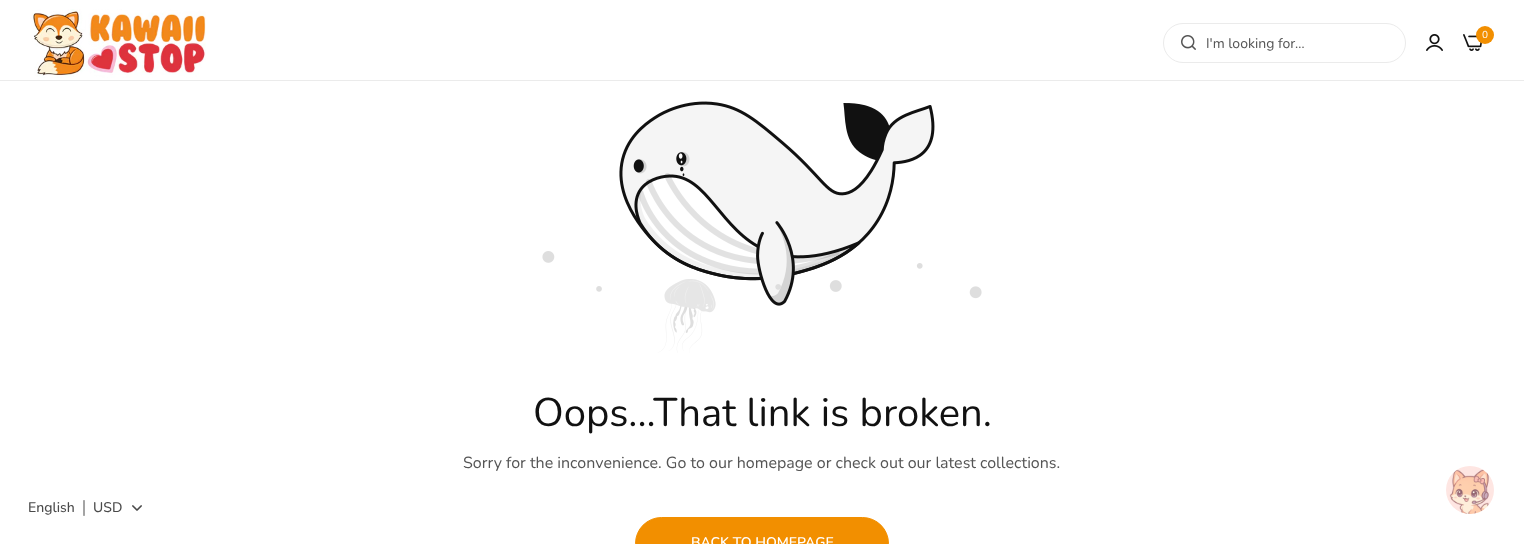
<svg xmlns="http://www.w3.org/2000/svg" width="1524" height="544">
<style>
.a{font:14px Nunito;fill:#555}
.b{font:10px Nunito;fill:#fff}
.c{font:40px Nunito;fill:#111}
.d{font:16px Nunito;fill:#555}
.e{font:600 14px Nunito;fill:#fff}
.f{font:500 14px Nunito;fill:#4a4a4a}
</style>
<defs>
<linearGradient id="g1" gradientUnits="userSpaceOnUse" x1="1438" y1="460" x2="1454" y2="477"><stop offset="0" stop-color="#fff" stop-opacity="0"/><stop offset="0.5" stop-color="#fff" stop-opacity="0.3"/><stop offset="1" stop-color="#fff" stop-opacity="0"/></linearGradient>
</defs>
<rect width="100%" height="100%" fill="#fff"/>
<path fill="#ebebeb" d="M0 80h1524v1H0z"/>
<image href="1.png" x="30" y="9" width="176" height="69"/>
<rect fill="none" stroke="#ebebeb" x="1163.5" y="23.5" width="242" height="39" rx="19.5"/>
<image href="2.png" x="1181" y="35" width="15" height="15"/>
<image href="3.png" x="1426" y="34" width="17" height="17"/>
<image href="4.png" x="1463" y="34" width="19" height="17"/>
<circle fill="#f28f00" cx="1485" cy="35" r="9"/>
<image href="5.png" x="542" y="101" width="440" height="252"/>
<rect fill="#f28f00" stroke="#f28f00" x="635.5" y="517.5" width="253" height="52" rx="26"/>
<image href="6.png" x="83" y="500" width="2" height="16"/>
<image href="7.png" x="132" y="505" width="10" height="6"/>
<image href="8.png" x="1446" y="466" width="48" height="48"/>
<path fill="url(#g1)" d="M1465 466.5l-18.5 18.5c2-9 9-16.5 18.5-18.5z"/>
<text class="a" x="1206" y="48">I'm looking for…</text>
<text class="b" x="1482" y="38">0</text>
<text class="c" x="533" y="426">Oops...That link is broken.</text>
<text class="d" x="463" y="468">Sorry for the inconvenience. Go to our homepage or check out our latest collections.</text>
<text class="e" x="691" y="547">BACK TO HOMEPAGE</text>
<text class="f" x="28" y="512">English</text>
<text class="f" x="93" y="512">USD</text>
</svg>
